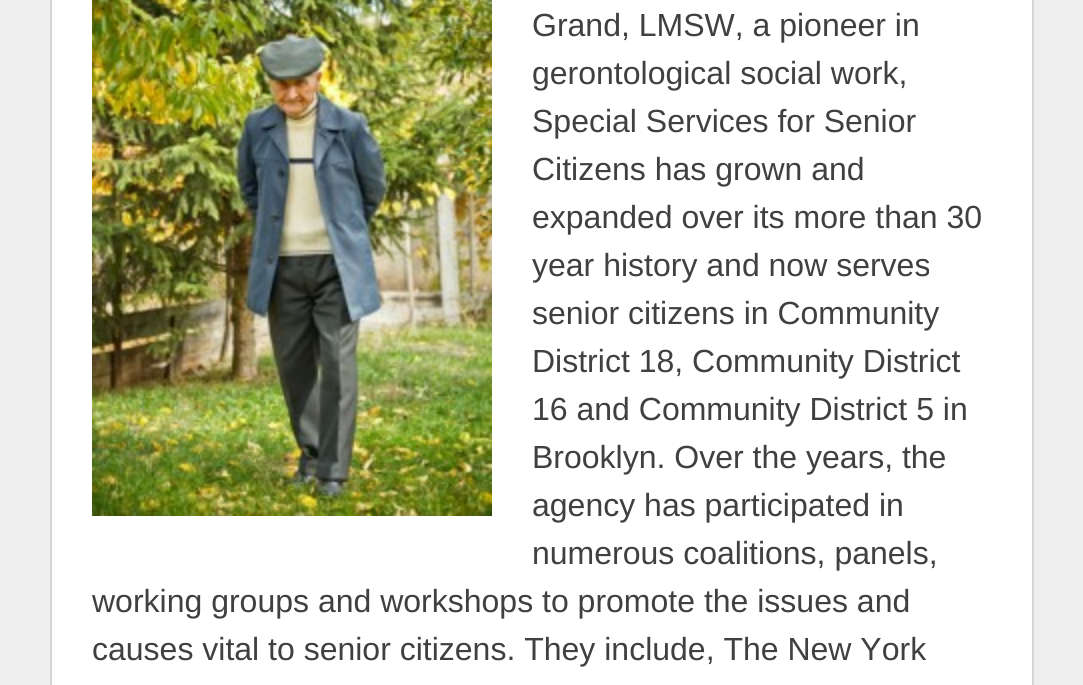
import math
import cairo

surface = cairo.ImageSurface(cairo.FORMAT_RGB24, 1083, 685)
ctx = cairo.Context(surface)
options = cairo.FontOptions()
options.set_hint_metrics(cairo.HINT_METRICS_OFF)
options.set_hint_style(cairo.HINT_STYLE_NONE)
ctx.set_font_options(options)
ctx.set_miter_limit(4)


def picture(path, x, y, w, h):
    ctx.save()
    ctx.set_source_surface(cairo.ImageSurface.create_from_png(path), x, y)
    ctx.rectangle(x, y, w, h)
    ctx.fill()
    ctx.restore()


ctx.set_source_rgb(0.937, 0.937, 0.937)
ctx.paint()
ctx.set_source_rgb(1, 1, 1)
ctx.rectangle(51, -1, 982, 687)
ctx.fill_preserve()
ctx.set_source_rgb(0.839, 0.839, 0.839)
ctx.stroke()
picture("img1.png", 92, 0, 400, 516)
ctx.select_font_face("Liberation Sans")
ctx.set_font_size(32)
ctx.set_source_rgb(0.251, 0.251, 0.251)
ctx.move_to(532, 36)
ctx.show_text("Grand, LMSW, a pioneer in")
ctx.move_to(532, 84)
ctx.show_text("gerontological social work,")
ctx.move_to(532, 132)
ctx.show_text("Special Services for Senior")
ctx.move_to(532, 180)
ctx.show_text("Citizens has grown and")
ctx.move_to(532, 228)
ctx.show_text("expanded over its more than 30")
ctx.move_to(532, 276)
ctx.show_text("year history and now serves")
ctx.move_to(532, 324)
ctx.show_text("senior citizens in Community")
ctx.move_to(532, 372)
ctx.show_text("District 18, Community District")
ctx.move_to(532, 420)
ctx.show_text("16 and Community District 5 in")
ctx.move_to(532, 468)
ctx.show_text("Brooklyn. Over the years, the")
ctx.move_to(532, 516)
ctx.show_text("agency has participated in")
ctx.move_to(532, 564)
ctx.show_text("numerous coalitions, panels,")
ctx.move_to(92, 612)
ctx.show_text("working groups and workshops to promote the issues and")
ctx.move_to(92, 660)
ctx.show_text("causes vital to senior citizens. They include, The New York")
surface.write_to_png("page.png")
